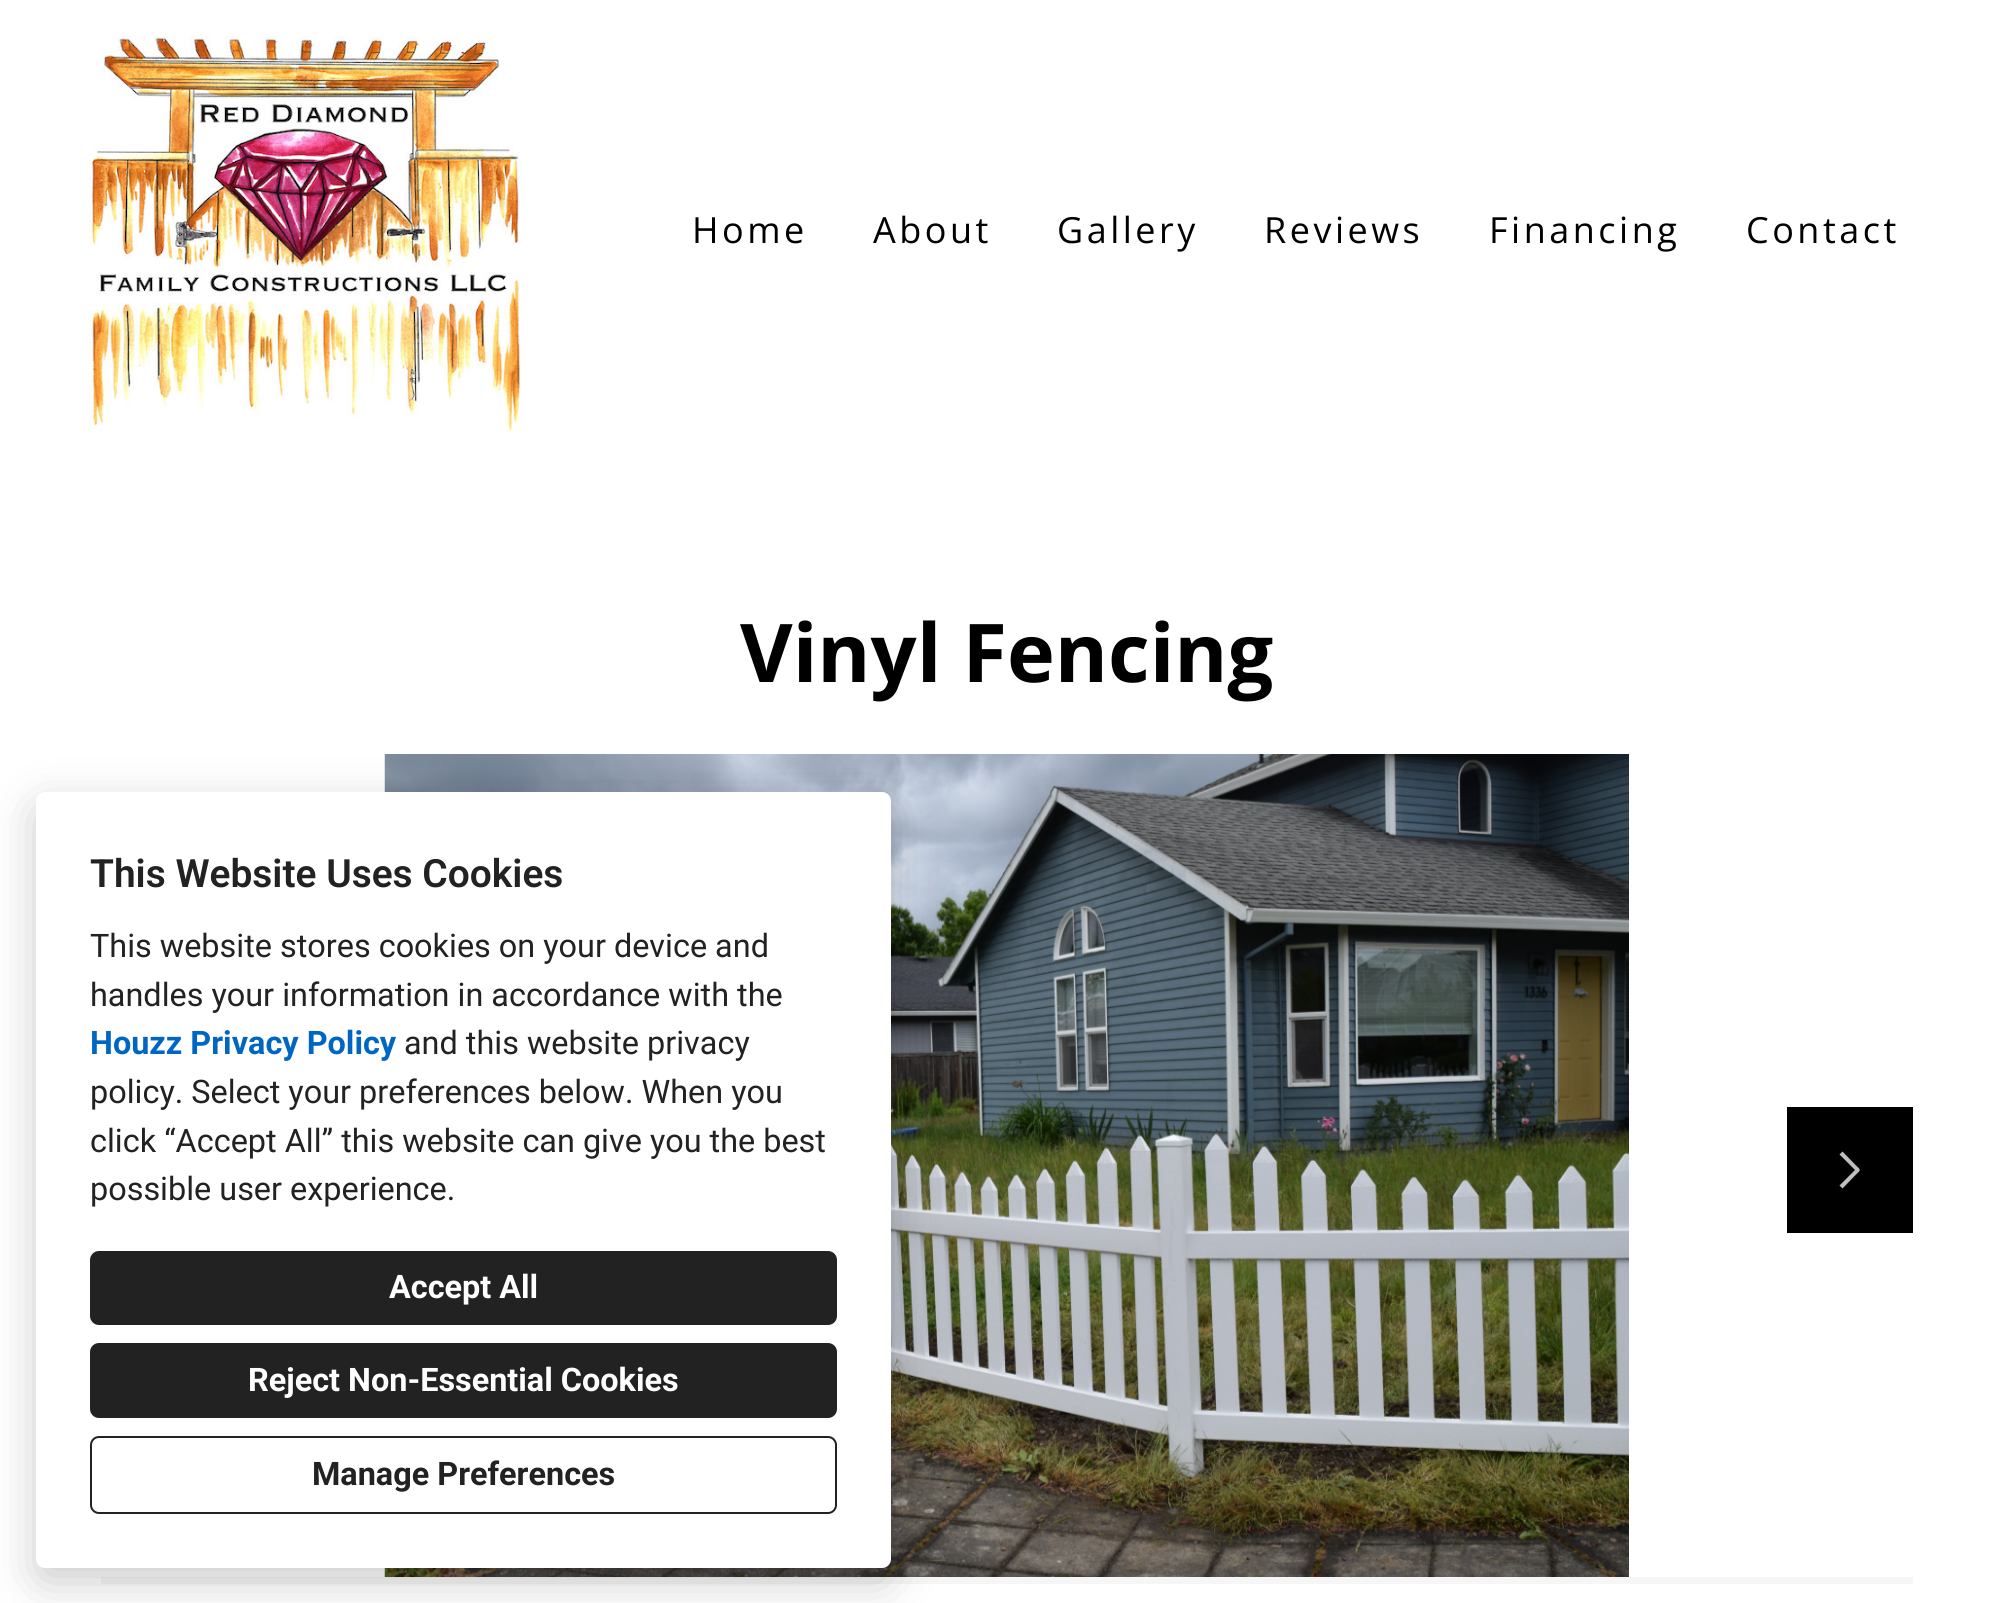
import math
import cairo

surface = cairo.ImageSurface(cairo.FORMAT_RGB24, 2012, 1603)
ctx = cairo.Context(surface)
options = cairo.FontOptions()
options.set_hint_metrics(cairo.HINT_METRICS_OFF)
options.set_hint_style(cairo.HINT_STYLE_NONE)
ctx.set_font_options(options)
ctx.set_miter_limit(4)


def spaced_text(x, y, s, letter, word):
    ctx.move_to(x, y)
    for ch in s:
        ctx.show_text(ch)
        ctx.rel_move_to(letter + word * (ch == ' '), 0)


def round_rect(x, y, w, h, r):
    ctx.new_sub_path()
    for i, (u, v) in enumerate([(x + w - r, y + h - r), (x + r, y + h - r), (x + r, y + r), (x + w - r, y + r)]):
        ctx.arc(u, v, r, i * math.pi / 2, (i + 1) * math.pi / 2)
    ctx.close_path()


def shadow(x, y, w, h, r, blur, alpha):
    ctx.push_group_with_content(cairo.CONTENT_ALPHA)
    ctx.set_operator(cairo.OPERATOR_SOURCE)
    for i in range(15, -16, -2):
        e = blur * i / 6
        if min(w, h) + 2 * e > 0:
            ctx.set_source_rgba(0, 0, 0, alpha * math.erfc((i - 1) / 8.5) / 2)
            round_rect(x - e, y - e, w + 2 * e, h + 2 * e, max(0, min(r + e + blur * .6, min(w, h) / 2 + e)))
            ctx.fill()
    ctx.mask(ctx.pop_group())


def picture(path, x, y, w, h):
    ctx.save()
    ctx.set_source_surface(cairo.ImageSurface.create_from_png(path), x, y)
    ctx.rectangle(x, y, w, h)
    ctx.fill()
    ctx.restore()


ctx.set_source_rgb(1, 1, 1)
ctx.paint()
picture("img1.png", 88, 36, 433, 396)
ctx.select_font_face("Open Sans")
ctx.set_font_size(36)
ctx.set_source_rgb(0, 0, 0)
spaced_text(692, 243, "Home", 3.5, 0)
spaced_text(873, 243, "About", 3.5, 0)
spaced_text(1057, 243, "Gallery", 3.5, 0)
spaced_text(1264, 243, "Reviews", 3.5, 0)
spaced_text(1489, 243, "Financing", 3.5, 0)
spaced_text(1746, 243, "Contact", 3.5, 0)
ctx.select_font_face("Open Sans", cairo.FONT_SLANT_NORMAL, cairo.FONT_WEIGHT_BOLD)
ctx.set_font_size(81)
ctx.move_to(740, 682)
ctx.show_text("Vinyl Fencing")
picture("img2.png", 384, 754, 1245, 823)
ctx.rectangle(1787, 1107, 126, 126)
ctx.fill()
ctx.set_source_rgb(0.749, 0.749, 0.749)
ctx.new_path()
ctx.move_to(1842.5, 1188.5)
ctx.line_to(1856, 1174.5)
ctx.curve_to(1861, 1170, 1861, 1170, 1856, 1165.5)
ctx.line_to(1842.5, 1151.5)
ctx.line_to(1839.5, 1154.5)
ctx.line_to(1855, 1170)
ctx.line_to(1839.5, 1185.5)
ctx.close_path()
ctx.fill()
ctx.set_source_rgb(0.961, 0.961, 0.961)
ctx.rectangle(101, 1577, 1812, 7)
ctx.fill()
ctx.set_source_rgb(0, 0, 0)
shadow(36, 806, 855, 776, 9, 22.5, 0.2)
ctx.set_source_rgb(1, 1, 1)
round_rect(36, 792, 855, 776, 9)
ctx.fill()
ctx.select_font_face("Roboto SemiBold")
ctx.set_font_size(38.9)
ctx.set_source_rgb(0.133, 0.133, 0.133)
ctx.move_to(90, 887)
ctx.show_text("This Website Uses Cookies")
ctx.select_font_face("Roboto")
ctx.set_font_size(32.4)
ctx.move_to(90, 957)
ctx.show_text("This website stores cookies on your device and")
ctx.move_to(90, 1006)
ctx.show_text("handles your information in accordance with the")
ctx.select_font_face("Roboto", cairo.FONT_SLANT_NORMAL, cairo.FONT_WEIGHT_BOLD)
ctx.set_source_rgb(0, 0.4, 0.765)
ctx.move_to(90, 1054)
ctx.show_text("Houzz Privacy Policy")
ctx.select_font_face("Roboto")
ctx.set_source_rgb(0.133, 0.133, 0.133)
ctx.move_to(404, 1054)
ctx.show_text("and this website privacy")
ctx.move_to(90, 1103)
ctx.show_text("policy. Select your preferences below. When you")
ctx.move_to(90, 1152)
ctx.show_text("click “Accept All” this website can give you the best")
ctx.move_to(90, 1200)
ctx.show_text("possible user experience.")
round_rect(90, 1251, 747, 74, 9)
ctx.fill()
ctx.select_font_face("Roboto", cairo.FONT_SLANT_NORMAL, cairo.FONT_WEIGHT_BOLD)
ctx.set_source_rgb(1, 1, 1)
ctx.move_to(389, 1298)
ctx.show_text("Accept All")
ctx.set_source_rgb(0.133, 0.133, 0.133)
round_rect(90, 1343, 747, 75, 9)
ctx.fill()
ctx.set_source_rgb(1, 1, 1)
ctx.move_to(248, 1391)
ctx.show_text("Reject Non-Essential Cookies")
round_rect(91, 1437, 745, 76, 8)
ctx.set_source_rgb(0.133, 0.133, 0.133)
ctx.stroke()
ctx.move_to(312, 1485)
ctx.show_text("Manage Preferences")
surface.write_to_png("page.png")
